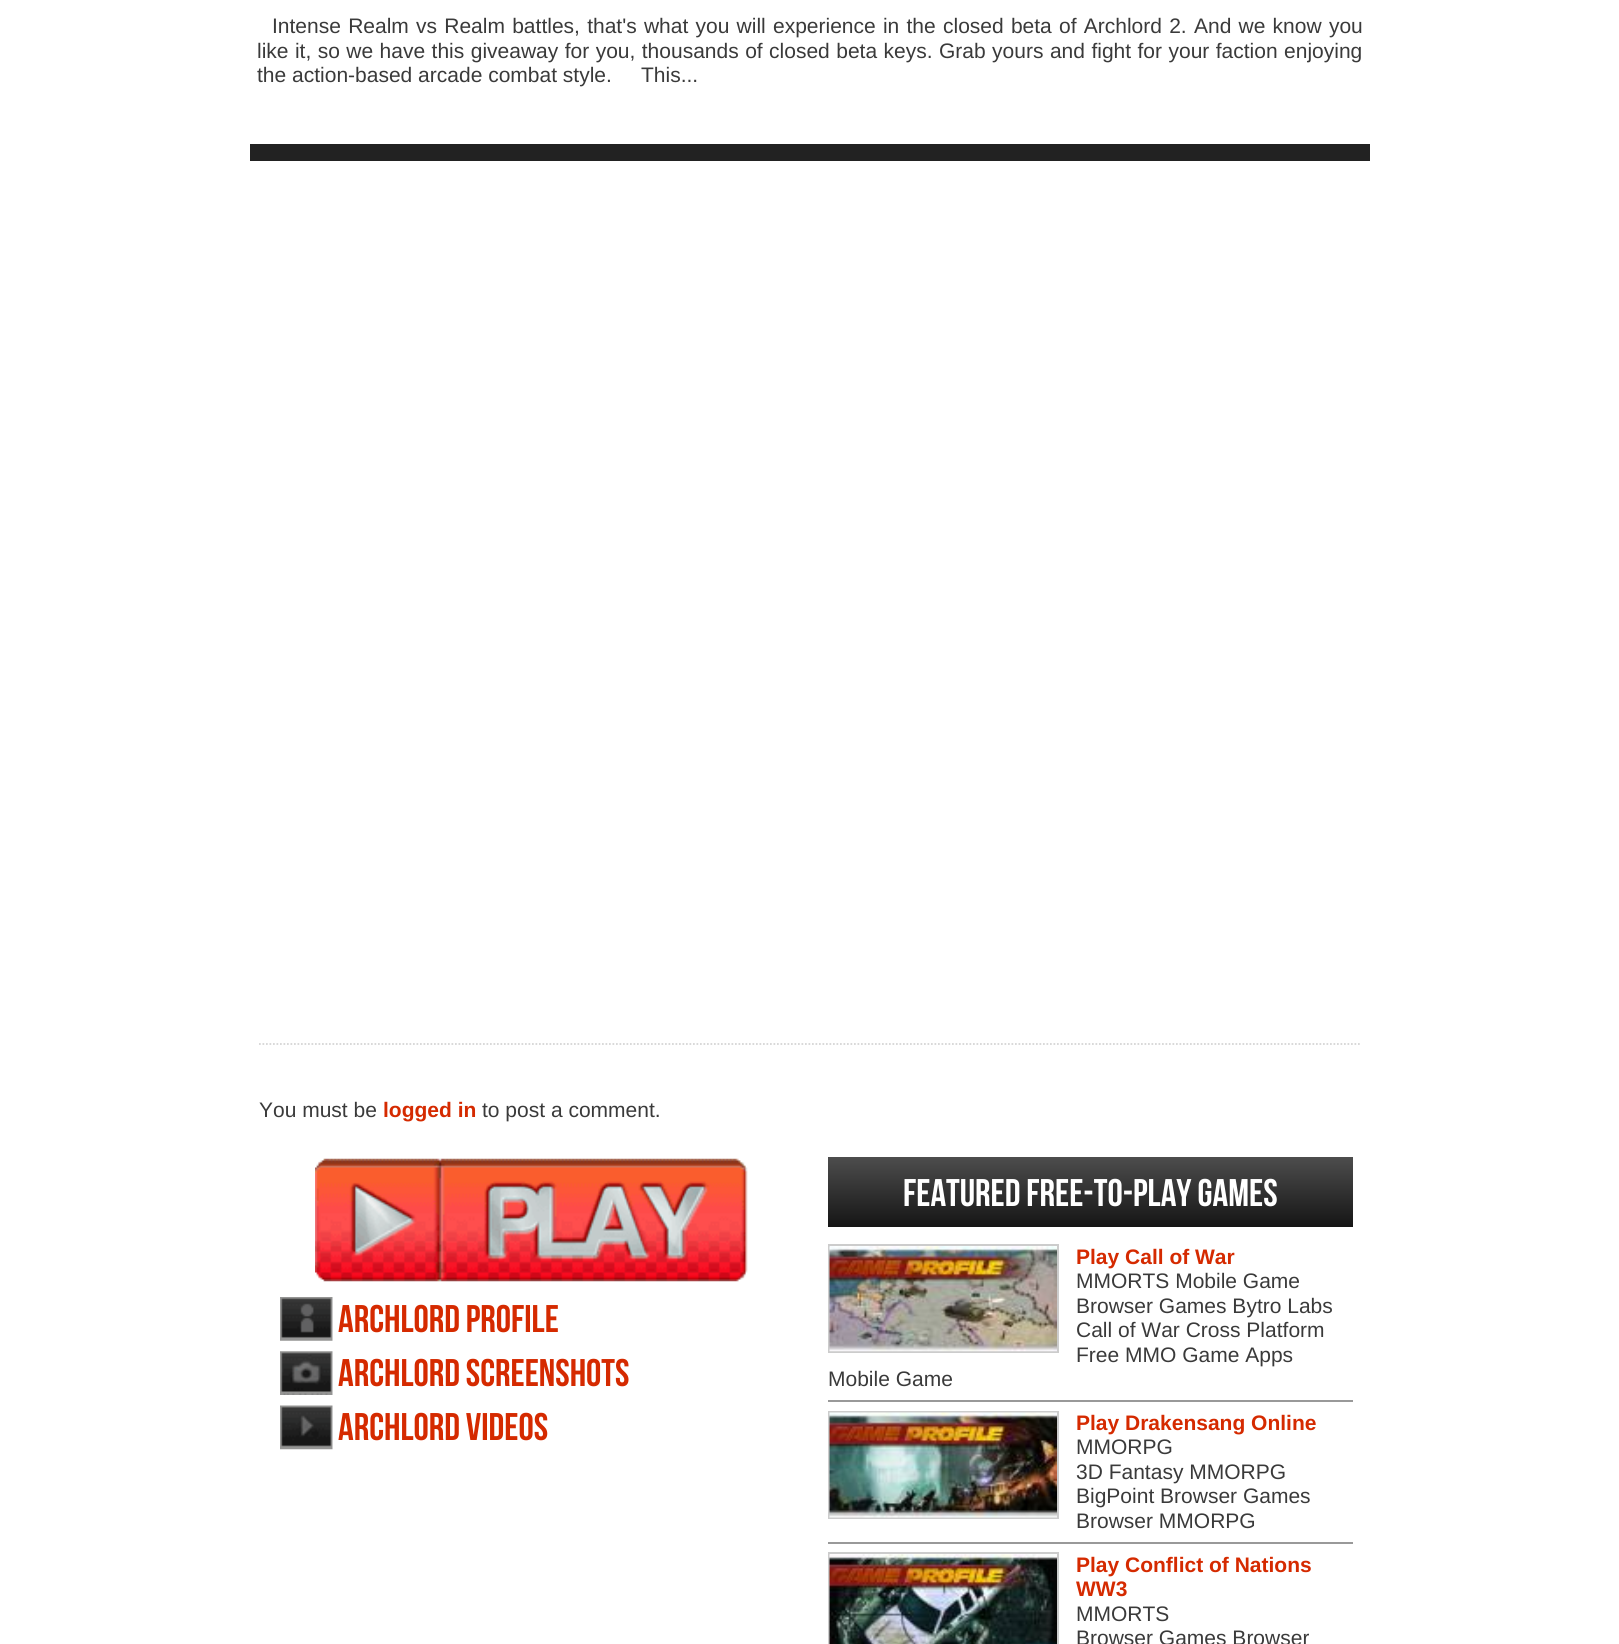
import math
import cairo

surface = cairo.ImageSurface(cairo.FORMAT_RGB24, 1619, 1644)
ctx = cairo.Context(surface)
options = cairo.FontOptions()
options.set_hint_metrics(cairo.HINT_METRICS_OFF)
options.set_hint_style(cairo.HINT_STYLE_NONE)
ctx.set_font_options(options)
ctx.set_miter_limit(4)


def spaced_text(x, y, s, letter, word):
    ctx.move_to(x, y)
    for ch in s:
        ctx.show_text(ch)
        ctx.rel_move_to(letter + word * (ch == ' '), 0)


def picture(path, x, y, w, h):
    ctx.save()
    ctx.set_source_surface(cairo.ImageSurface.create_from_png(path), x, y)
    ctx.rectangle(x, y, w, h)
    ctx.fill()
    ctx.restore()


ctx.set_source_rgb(1, 1, 1)
ctx.paint()
ctx.select_font_face("Liberation Sans")
ctx.set_font_size(21)
ctx.set_source_rgb(0.227, 0.227, 0.227)
spaced_text(272, 33, "Intense Realm vs Realm battles, that's what you will experience in the closed beta of Archlord 2. And we know you", 0, 1.4)
spaced_text(257, 58, "like it, so we have this giveaway for you, thousands of closed beta keys. Grab yours and fight for your faction enjoying", 0, 0.6)
ctx.move_to(257, 82)
ctx.show_text("the action-based arcade combat style.")
ctx.move_to(641, 82)
ctx.show_text("This...")
ctx.set_source_rgb(0.133, 0.133, 0.133)
ctx.rectangle(250, 144, 1120, 17)
ctx.fill()
ctx.new_path()
ctx.move_to(259, 1044)
ctx.line_to(1361.5, 1044)
ctx.set_source_rgb(0.835, 0.835, 0.835)
ctx.set_line_width(1.8)
ctx.set_dash([1.75, 1.75])
ctx.stroke()
ctx.set_source_rgb(0.227, 0.227, 0.227)
ctx.move_to(259, 1117)
ctx.show_text("You must be")
ctx.select_font_face("Liberation Sans", cairo.FONT_SLANT_NORMAL, cairo.FONT_WEIGHT_BOLD)
ctx.set_source_rgb(0.835, 0.165, 0)
ctx.move_to(383, 1117)
ctx.show_text("logged in")
ctx.select_font_face("Liberation Sans")
ctx.set_source_rgb(0.227, 0.227, 0.227)
ctx.move_to(482, 1117)
ctx.show_text("to post a comment.")
picture("img1.png", 315, 1158, 433, 124)
picture("img2.png", 280, 1297, 53, 44)
ctx.select_font_face("Bebas Neue")
ctx.set_font_size(38.5)
ctx.set_source_rgb(0.835, 0.165, 0)
ctx.move_to(338, 1332)
ctx.show_text("Archlord profile")
picture("img3.png", 280, 1351, 53, 44)
ctx.move_to(338, 1386)
ctx.show_text("Archlord screenshots")
picture("img4.png", 280, 1405, 53, 45)
ctx.move_to(338, 1440)
ctx.show_text("Archlord videos")
gradient = cairo.LinearGradient(1090, 1157, 1090, 1227)
gradient.add_color_stop_rgba(0, 0.302, 0.302, 0.302, 1)
gradient.add_color_stop_rgba(1, 0.082, 0.082, 0.082, 1)
ctx.set_source(gradient)
ctx.rectangle(828, 1157, 525, 70)
ctx.fill()
ctx.set_source_rgb(1, 1, 1)
ctx.move_to(903, 1206)
ctx.show_text("Featured Free-to-play Games")
ctx.set_source_rgb(0.6, 0.6, 0.6)
ctx.rectangle(828, 1400, 525, 2)
ctx.fill()
ctx.rectangle(829, 1245, 229, 107)
ctx.set_source_rgb(0.8, 0.8, 0.8)
ctx.set_line_width(2)
ctx.set_dash([])
ctx.stroke()
picture("img5.png", 829, 1246, 228, 106)
ctx.select_font_face("Liberation Sans", cairo.FONT_SLANT_NORMAL, cairo.FONT_WEIGHT_BOLD)
ctx.set_font_size(21)
ctx.set_source_rgb(0.835, 0.165, 0)
ctx.move_to(1076, 1264)
ctx.show_text("Play Call of War")
ctx.select_font_face("Liberation Sans")
ctx.set_source_rgb(0.227, 0.227, 0.227)
ctx.move_to(1076, 1288)
ctx.show_text("MMORTS Mobile Game")
ctx.move_to(1076, 1313)
ctx.show_text("Browser Games Bytro Labs")
ctx.move_to(1076, 1337)
ctx.show_text("Call of War Cross Platform")
ctx.move_to(1076, 1362)
ctx.show_text("Free MMO Game Apps")
ctx.move_to(828, 1386)
ctx.show_text("Mobile Game")
ctx.set_source_rgb(0.6, 0.6, 0.6)
ctx.rectangle(828, 1542, 525, 2)
ctx.fill()
ctx.rectangle(829, 1412, 229, 106)
ctx.set_source_rgb(0.8, 0.8, 0.8)
ctx.stroke()
picture("img6.png", 829, 1412, 228, 106)
ctx.select_font_face("Liberation Sans", cairo.FONT_SLANT_NORMAL, cairo.FONT_WEIGHT_BOLD)
ctx.set_source_rgb(0.835, 0.165, 0)
ctx.move_to(1076, 1430)
ctx.show_text("Play Drakensang Online")
ctx.select_font_face("Liberation Sans")
ctx.set_source_rgb(0.227, 0.227, 0.227)
ctx.move_to(1076, 1454)
ctx.show_text("MMORPG")
ctx.move_to(1076, 1479)
ctx.show_text("3D Fantasy MMORPG")
ctx.move_to(1076, 1503)
ctx.show_text("BigPoint Browser Games")
ctx.move_to(1076, 1528)
ctx.show_text("Browser MMORPG")
ctx.rectangle(829, 1553, 229, 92)
ctx.set_source_rgb(0.8, 0.8, 0.8)
ctx.stroke()
picture("img7.png", 829, 1554, 228, 90)
ctx.select_font_face("Liberation Sans", cairo.FONT_SLANT_NORMAL, cairo.FONT_WEIGHT_BOLD)
ctx.set_source_rgb(0.835, 0.165, 0)
ctx.move_to(1076, 1572)
ctx.show_text("Play Conflict of Nations")
ctx.move_to(1076, 1596)
ctx.show_text("WW3")
ctx.select_font_face("Liberation Sans")
ctx.set_source_rgb(0.227, 0.227, 0.227)
ctx.move_to(1076, 1621)
ctx.show_text("MMORTS")
ctx.move_to(1076, 1645)
ctx.show_text("Browser Games Browser")
surface.write_to_png("page.png")
